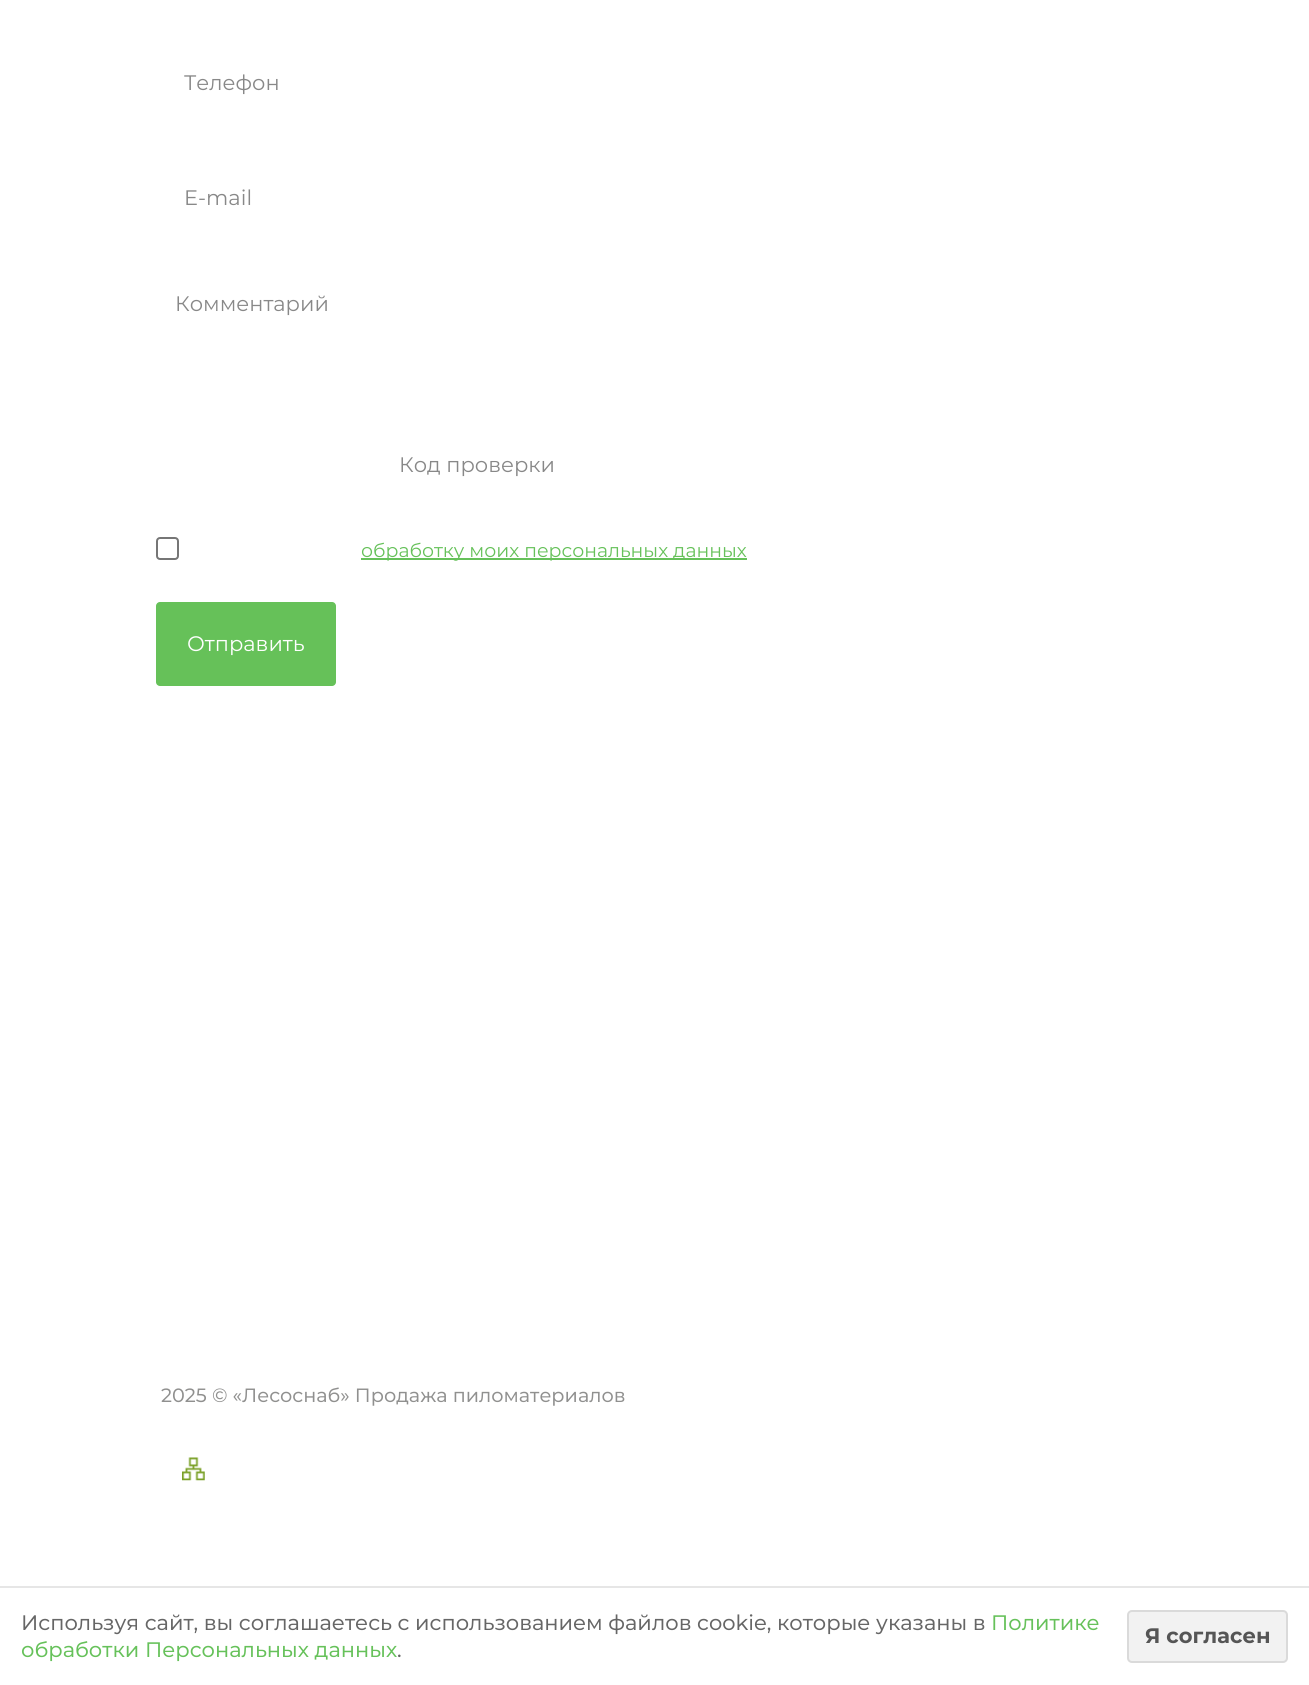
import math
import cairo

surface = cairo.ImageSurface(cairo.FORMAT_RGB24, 1309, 1685)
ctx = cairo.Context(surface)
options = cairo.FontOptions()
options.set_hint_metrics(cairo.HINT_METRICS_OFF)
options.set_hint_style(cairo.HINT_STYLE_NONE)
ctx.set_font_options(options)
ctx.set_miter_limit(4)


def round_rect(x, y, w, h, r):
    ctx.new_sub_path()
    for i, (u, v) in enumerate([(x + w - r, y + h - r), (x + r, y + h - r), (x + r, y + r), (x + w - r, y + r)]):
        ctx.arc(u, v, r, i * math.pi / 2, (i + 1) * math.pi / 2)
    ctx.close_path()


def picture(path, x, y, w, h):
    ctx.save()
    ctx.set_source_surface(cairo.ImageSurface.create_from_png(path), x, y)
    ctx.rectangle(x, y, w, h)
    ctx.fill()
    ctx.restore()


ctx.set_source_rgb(1, 1, 1)
ctx.paint()
ctx.select_font_face("Montserrat")
ctx.set_font_size(21)
ctx.set_source_rgb(0.533, 0.533, 0.533)
ctx.move_to(184, 90)
ctx.show_text("Телефон")
ctx.move_to(184, 205)
ctx.show_text("E-mail")
ctx.move_to(175, 311)
ctx.show_text("Комментарий")
ctx.move_to(399, 472)
ctx.show_text("Код проверки")
round_rect(157, 538, 21, 21, 3)
ctx.set_source_rgb(0.463, 0.463, 0.463)
ctx.stroke()
ctx.set_source_rgb(0.4, 0.757, 0.353)
ctx.rectangle(361, 558, 386, 2)
ctx.fill()
ctx.set_font_size(18.9)
ctx.move_to(361, 557)
ctx.show_text("обработку моих персональных данных")
ctx.set_source_rgb(0.4, 0.757, 0.349)
round_rect(156, 602, 180, 84, 4)
ctx.fill()
ctx.set_font_size(21)
ctx.set_source_rgb(1, 1, 1)
ctx.move_to(187, 651)
ctx.show_text("Отправить")
ctx.select_font_face("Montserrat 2")
ctx.set_font_size(19.25)
ctx.set_source_rgb(0.565, 0.565, 0.561)
ctx.move_to(161, 1402)
ctx.show_text("2025 © «Лесоснаб» Продажа пиломатериалов")
picture("img1.png", 182, 1457, 23, 24)
ctx.set_source_rgb(0.902, 0.902, 0.902)
ctx.rectangle(0, 1586, 1309, 2)
ctx.fill()
ctx.set_font_size(21)
ctx.set_source_rgb(0.4, 0.4, 0.4)
ctx.move_to(21, 1630)
ctx.show_text("Используя сайт, вы соглашаетесь с использованием файлов cookie, которые указаны в")
ctx.set_source_rgb(0.4, 0.757, 0.353)
ctx.move_to(991, 1630)
ctx.show_text("Политике")
ctx.move_to(21, 1657)
ctx.show_text("обработки Персональных данных")
ctx.set_source_rgb(0.4, 0.4, 0.4)
ctx.move_to(397, 1657)
ctx.show_text(".")
ctx.set_source_rgb(0.949, 0.949, 0.949)
round_rect(1127, 1610, 161, 53, 5)
ctx.fill()
round_rect(1128, 1611, 159, 51, 4)
ctx.set_source_rgba(0, 0, 0, 0.1)
ctx.stroke()
ctx.select_font_face("Montserrat", cairo.FONT_SLANT_NORMAL, cairo.FONT_WEIGHT_BOLD)
ctx.set_source_rgb(0.333, 0.333, 0.333)
ctx.move_to(1145, 1643)
ctx.show_text("Я согласен")
surface.write_to_png("page.png")
